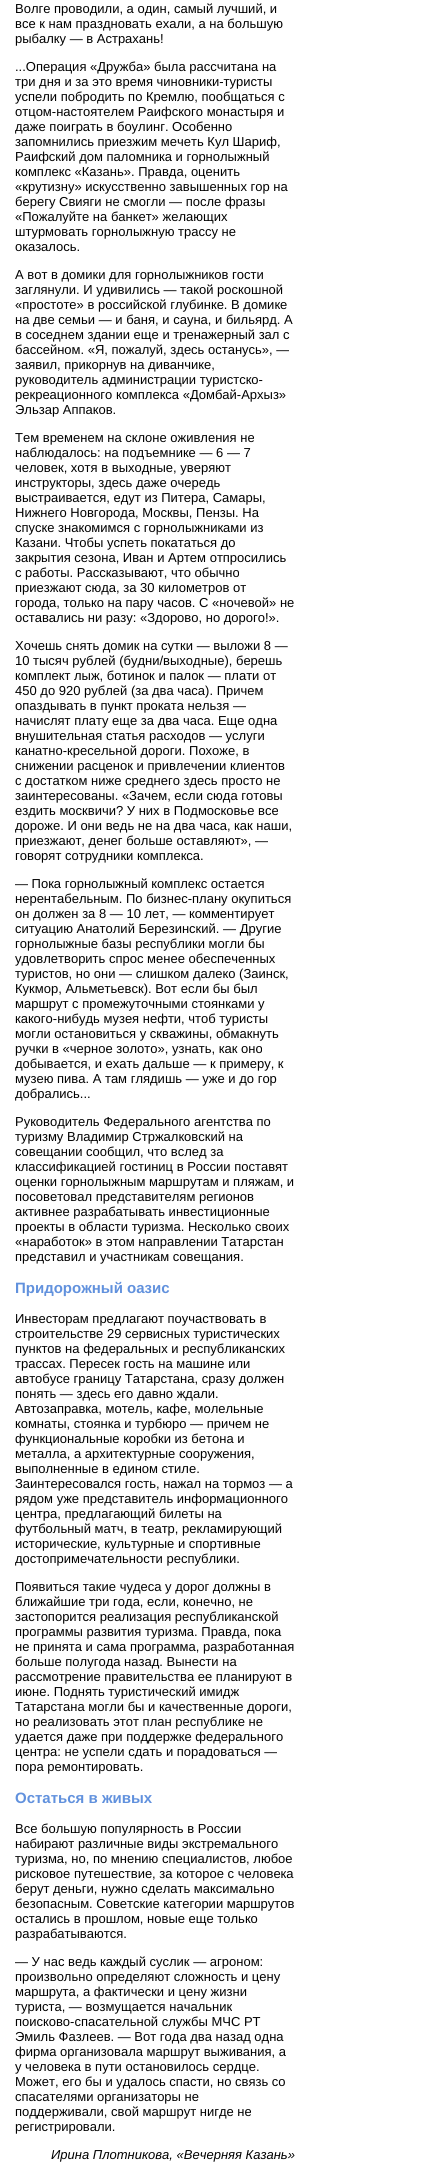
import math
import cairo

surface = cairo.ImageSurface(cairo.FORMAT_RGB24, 438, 2162)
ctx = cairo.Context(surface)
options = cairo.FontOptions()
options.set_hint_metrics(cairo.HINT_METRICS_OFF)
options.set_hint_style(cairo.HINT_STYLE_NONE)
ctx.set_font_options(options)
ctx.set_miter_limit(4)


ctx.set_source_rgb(1, 1, 1)
ctx.paint()
ctx.select_font_face("Liberation Sans")
ctx.set_font_size(13)
ctx.set_source_rgb(0, 0, 0)
ctx.move_to(15, 13)
ctx.show_text("Волге проводили, а один, самый лучший, и")
ctx.move_to(15, 28)
ctx.show_text("все к нам праздновать ехали, а на большую")
ctx.move_to(15, 43)
ctx.show_text("рыбалку — в Астрахань!")
ctx.move_to(15, 71)
ctx.show_text("...Операция «Дружба» была рассчитана на")
ctx.move_to(15, 86)
ctx.show_text("три дня и за это время чиновники-туристы")
ctx.move_to(15, 101)
ctx.show_text("успели побродить по Кремлю, пообщаться с")
ctx.move_to(15, 116)
ctx.show_text("отцом-настоятелем Раифского монастыря и")
ctx.move_to(15, 131)
ctx.show_text("даже поиграть в боулинг. Особенно")
ctx.move_to(15, 146)
ctx.show_text("запомнились приезжим мечеть Кул Шариф,")
ctx.move_to(15, 161)
ctx.show_text("Раифский дом паломника и горнолыжный")
ctx.move_to(15, 176)
ctx.show_text("комплекс «Казань». Правда, оценить")
ctx.move_to(15, 191)
ctx.show_text("«крутизну» искусственно завышенных гор на")
ctx.move_to(15, 206)
ctx.show_text("берегу Свияги не смогли — после фразы")
ctx.move_to(15, 221)
ctx.show_text("«Пожалуйте на банкет» желающих")
ctx.move_to(15, 236)
ctx.show_text("штурмовать горнолыжную трассу не")
ctx.move_to(15, 251)
ctx.show_text("оказалось.")
ctx.move_to(15, 279)
ctx.show_text("А вот в домики для горнолыжников гости")
ctx.move_to(15, 294)
ctx.show_text("заглянули. И удивились — такой роскошной")
ctx.move_to(15, 309)
ctx.show_text("«простоте» в российской глубинке. В домике")
ctx.move_to(15, 324)
ctx.show_text("на две семьи — и баня, и сауна, и бильярд. А")
ctx.move_to(15, 339)
ctx.show_text("в соседнем здании еще и тренажерный зал с")
ctx.move_to(15, 354)
ctx.show_text("бассейном. «Я, пожалуй, здесь останусь», —")
ctx.move_to(15, 369)
ctx.show_text("заявил, прикорнув на диванчике,")
ctx.move_to(15, 384)
ctx.show_text("руководитель администрации туристско-")
ctx.move_to(15, 399)
ctx.show_text("рекреационного комплекса «Домбай-Архыз»")
ctx.move_to(15, 414)
ctx.show_text("Эльзар Аппаков.")
ctx.move_to(15, 442)
ctx.show_text("Тем временем на склоне оживления не")
ctx.move_to(15, 457)
ctx.show_text("наблюдалось: на подъемнике — 6 — 7")
ctx.move_to(15, 472)
ctx.show_text("человек, хотя в выходные, уверяют")
ctx.move_to(15, 487)
ctx.show_text("инструкторы, здесь даже очередь")
ctx.move_to(15, 502)
ctx.show_text("выстраивается, едут из Питера, Самары,")
ctx.move_to(15, 517)
ctx.show_text("Нижнего Новгорода, Москвы, Пензы. На")
ctx.move_to(15, 532)
ctx.show_text("спуске знакомимся с горнолыжниками из")
ctx.move_to(15, 547)
ctx.show_text("Казани. Чтобы успеть покататься до")
ctx.move_to(15, 562)
ctx.show_text("закрытия сезона, Иван и Артем отпросились")
ctx.move_to(15, 577)
ctx.show_text("с работы. Рассказывают, что обычно")
ctx.move_to(15, 592)
ctx.show_text("приезжают сюда, за 30 километров от")
ctx.move_to(15, 607)
ctx.show_text("города, только на пару часов. С «ночевой» не")
ctx.move_to(15, 622)
ctx.show_text("оставались ни разу: «Здорово, но дорого!».")
ctx.move_to(15, 650)
ctx.show_text("Хочешь снять домик на сутки — выложи 8 —")
ctx.move_to(15, 665)
ctx.show_text("10 тысяч рублей (будни/выходные), берешь")
ctx.move_to(15, 680)
ctx.show_text("комплект лыж, ботинок и палок — плати от")
ctx.move_to(15, 695)
ctx.show_text("450 до 920 рублей (за два часа). Причем")
ctx.move_to(15, 710)
ctx.show_text("опаздывать в пункт проката нельзя —")
ctx.move_to(15, 725)
ctx.show_text("начислят плату еще за два часа. Еще одна")
ctx.move_to(15, 740)
ctx.show_text("внушительная статья расходов — услуги")
ctx.move_to(15, 755)
ctx.show_text("канатно-кресельной дороги. Похоже, в")
ctx.move_to(15, 770)
ctx.show_text("снижении расценок и привлечении клиентов")
ctx.move_to(15, 785)
ctx.show_text("с достатком ниже среднего здесь просто не")
ctx.move_to(15, 800)
ctx.show_text("заинтересованы. «Зачем, если сюда готовы")
ctx.move_to(15, 815)
ctx.show_text("ездить москвичи? У них в Подмосковье все")
ctx.move_to(15, 830)
ctx.show_text("дороже. И они ведь не на два часа, как наши,")
ctx.move_to(15, 845)
ctx.show_text("приезжают, денег больше оставляют», —")
ctx.move_to(15, 860)
ctx.show_text("говорят сотрудники комплекса.")
ctx.move_to(15, 888)
ctx.show_text("— Пока горнолыжный комплекс остается")
ctx.move_to(15, 903)
ctx.show_text("нерентабельным. По бизнес-плану окупиться")
ctx.move_to(15, 918)
ctx.show_text("он должен за 8 — 10 лет, — комментирует")
ctx.move_to(15, 933)
ctx.show_text("ситуацию Анатолий Березинский. — Другие")
ctx.move_to(15, 948)
ctx.show_text("горнолыжные базы республики могли бы")
ctx.move_to(15, 963)
ctx.show_text("удовлетворить спрос менее обеспеченных")
ctx.move_to(15, 978)
ctx.show_text("туристов, но они — слишком далеко (Заинск,")
ctx.move_to(15, 993)
ctx.show_text("Кукмор, Альметьевск). Вот если бы был")
ctx.move_to(15, 1008)
ctx.show_text("маршрут с промежуточными стоянками у")
ctx.move_to(15, 1023)
ctx.show_text("какого-нибудь музея нефти, чтоб туристы")
ctx.move_to(15, 1038)
ctx.show_text("могли остановиться у скважины, обмакнуть")
ctx.move_to(15, 1053)
ctx.show_text("ручки в «черное золото», узнать, как оно")
ctx.move_to(15, 1068)
ctx.show_text("добывается, и ехать дальше — к примеру, к")
ctx.move_to(15, 1083)
ctx.show_text("музею пива. А там глядишь — уже и до гор")
ctx.move_to(15, 1098)
ctx.show_text("добрались...")
ctx.move_to(15, 1126)
ctx.show_text("Руководитель Федерального агентства по")
ctx.move_to(15, 1141)
ctx.show_text("туризму Владимир Стржалковский на")
ctx.move_to(15, 1156)
ctx.show_text("совещании сообщил, что вслед за")
ctx.move_to(15, 1171)
ctx.show_text("классификацией гостиниц в России поставят")
ctx.move_to(15, 1186)
ctx.show_text("оценки горнолыжным маршрутам и пляжам, и")
ctx.move_to(15, 1201)
ctx.show_text("посоветовал представителям регионов")
ctx.move_to(15, 1216)
ctx.show_text("активнее разрабатывать инвестиционные")
ctx.move_to(15, 1231)
ctx.show_text("проекты в области туризма. Несколько своих")
ctx.move_to(15, 1246)
ctx.show_text("«наработок» в этом направлении Татарстан")
ctx.move_to(15, 1261)
ctx.show_text("представил и участникам совещания.")
ctx.select_font_face("Liberation Sans", cairo.FONT_SLANT_NORMAL, cairo.FONT_WEIGHT_BOLD)
ctx.set_font_size(15)
ctx.set_source_rgb(0.38, 0.569, 0.867)
ctx.move_to(15, 1293)
ctx.show_text("Придорожный оазис")
ctx.select_font_face("Liberation Sans")
ctx.set_font_size(13)
ctx.set_source_rgb(0, 0, 0)
ctx.move_to(15, 1323)
ctx.show_text("Инвесторам предлагают поучаствовать в")
ctx.move_to(15, 1338)
ctx.show_text("строительстве 29 сервисных туристических")
ctx.move_to(15, 1353)
ctx.show_text("пунктов на федеральных и республиканских")
ctx.move_to(15, 1368)
ctx.show_text("трассах. Пересек гость на машине или")
ctx.move_to(15, 1383)
ctx.show_text("автобусе границу Татарстана, сразу должен")
ctx.move_to(15, 1398)
ctx.show_text("понять — здесь его давно ждали.")
ctx.move_to(15, 1413)
ctx.show_text("Автозаправка, мотель, кафе, молельные")
ctx.move_to(15, 1428)
ctx.show_text("комнаты, стоянка и турбюро — причем не")
ctx.move_to(15, 1443)
ctx.show_text("функциональные коробки из бетона и")
ctx.move_to(15, 1458)
ctx.show_text("металла, а архитектурные сооружения,")
ctx.move_to(15, 1473)
ctx.show_text("выполненные в едином стиле.")
ctx.move_to(15, 1488)
ctx.show_text("Заинтересовался гость, нажал на тормоз — а")
ctx.move_to(15, 1503)
ctx.show_text("рядом уже представитель информационного")
ctx.move_to(15, 1518)
ctx.show_text("центра, предлагающий билеты на")
ctx.move_to(15, 1533)
ctx.show_text("футбольный матч, в театр, рекламирующий")
ctx.move_to(15, 1548)
ctx.show_text("исторические, культурные и спортивные")
ctx.move_to(15, 1563)
ctx.show_text("достопримечательности республики.")
ctx.move_to(15, 1591)
ctx.show_text("Появиться такие чудеса у дорог должны в")
ctx.move_to(15, 1606)
ctx.show_text("ближайшие три года, если, конечно, не")
ctx.move_to(15, 1621)
ctx.show_text("застопорится реализация республиканской")
ctx.move_to(15, 1636)
ctx.show_text("программы развития туризма. Правда, пока")
ctx.move_to(15, 1651)
ctx.show_text("не принята и сама программа, разработанная")
ctx.move_to(15, 1666)
ctx.show_text("больше полугода назад. Вынести на")
ctx.move_to(15, 1681)
ctx.show_text("рассмотрение правительства ее планируют в")
ctx.move_to(15, 1696)
ctx.show_text("июне. Поднять туристический имидж")
ctx.move_to(15, 1711)
ctx.show_text("Татарстана могли бы и качественные дороги,")
ctx.move_to(15, 1726)
ctx.show_text("но реализовать этот план республике не")
ctx.move_to(15, 1741)
ctx.show_text("удается даже при поддержке федерального")
ctx.move_to(15, 1756)
ctx.show_text("центра: не успели сдать и порадоваться —")
ctx.move_to(15, 1771)
ctx.show_text("пора ремонтировать.")
ctx.select_font_face("Liberation Sans", cairo.FONT_SLANT_NORMAL, cairo.FONT_WEIGHT_BOLD)
ctx.set_font_size(15)
ctx.set_source_rgb(0.38, 0.569, 0.867)
ctx.move_to(15, 1803)
ctx.show_text("Остаться в живых")
ctx.select_font_face("Liberation Sans")
ctx.set_font_size(13)
ctx.set_source_rgb(0, 0, 0)
ctx.move_to(15, 1833)
ctx.show_text("Все большую популярность в России")
ctx.move_to(15, 1848)
ctx.show_text("набирают различные виды экстремального")
ctx.move_to(15, 1863)
ctx.show_text("туризма, но, по мнению специалистов, любое")
ctx.move_to(15, 1878)
ctx.show_text("рисковое путешествие, за которое с человека")
ctx.move_to(15, 1893)
ctx.show_text("берут деньги, нужно сделать максимально")
ctx.move_to(15, 1908)
ctx.show_text("безопасным. Советские категории маршрутов")
ctx.move_to(15, 1923)
ctx.show_text("остались в прошлом, новые еще только")
ctx.move_to(15, 1938)
ctx.show_text("разрабатываются.")
ctx.move_to(15, 1966)
ctx.show_text("— У нас ведь каждый суслик — агроном:")
ctx.move_to(15, 1981)
ctx.show_text("произвольно определяют сложность и цену")
ctx.move_to(15, 1996)
ctx.show_text("маршрута, а фактически и цену жизни")
ctx.move_to(15, 2011)
ctx.show_text("туриста, — возмущается начальник")
ctx.move_to(15, 2026)
ctx.show_text("поисково-спасательной службы МЧС РТ")
ctx.move_to(15, 2041)
ctx.show_text("Эмиль Фазлеев. — Вот года два назад одна")
ctx.move_to(15, 2056)
ctx.show_text("фирма организовала маршрут выживания, а")
ctx.move_to(15, 2071)
ctx.show_text("у человека в пути остановилось сердце.")
ctx.move_to(15, 2086)
ctx.show_text("Может, его бы и удалось спасти, но связь со")
ctx.move_to(15, 2101)
ctx.show_text("спасателями организаторы не")
ctx.move_to(15, 2116)
ctx.show_text("поддерживали, свой маршрут нигде не")
ctx.move_to(15, 2131)
ctx.show_text("регистрировали.")
ctx.select_font_face("Liberation Sans", cairo.FONT_SLANT_ITALIC)
ctx.move_to(51, 2159)
ctx.show_text("Ирина Плотникова, «Вечерняя Казань»")
surface.write_to_png("page.png")
